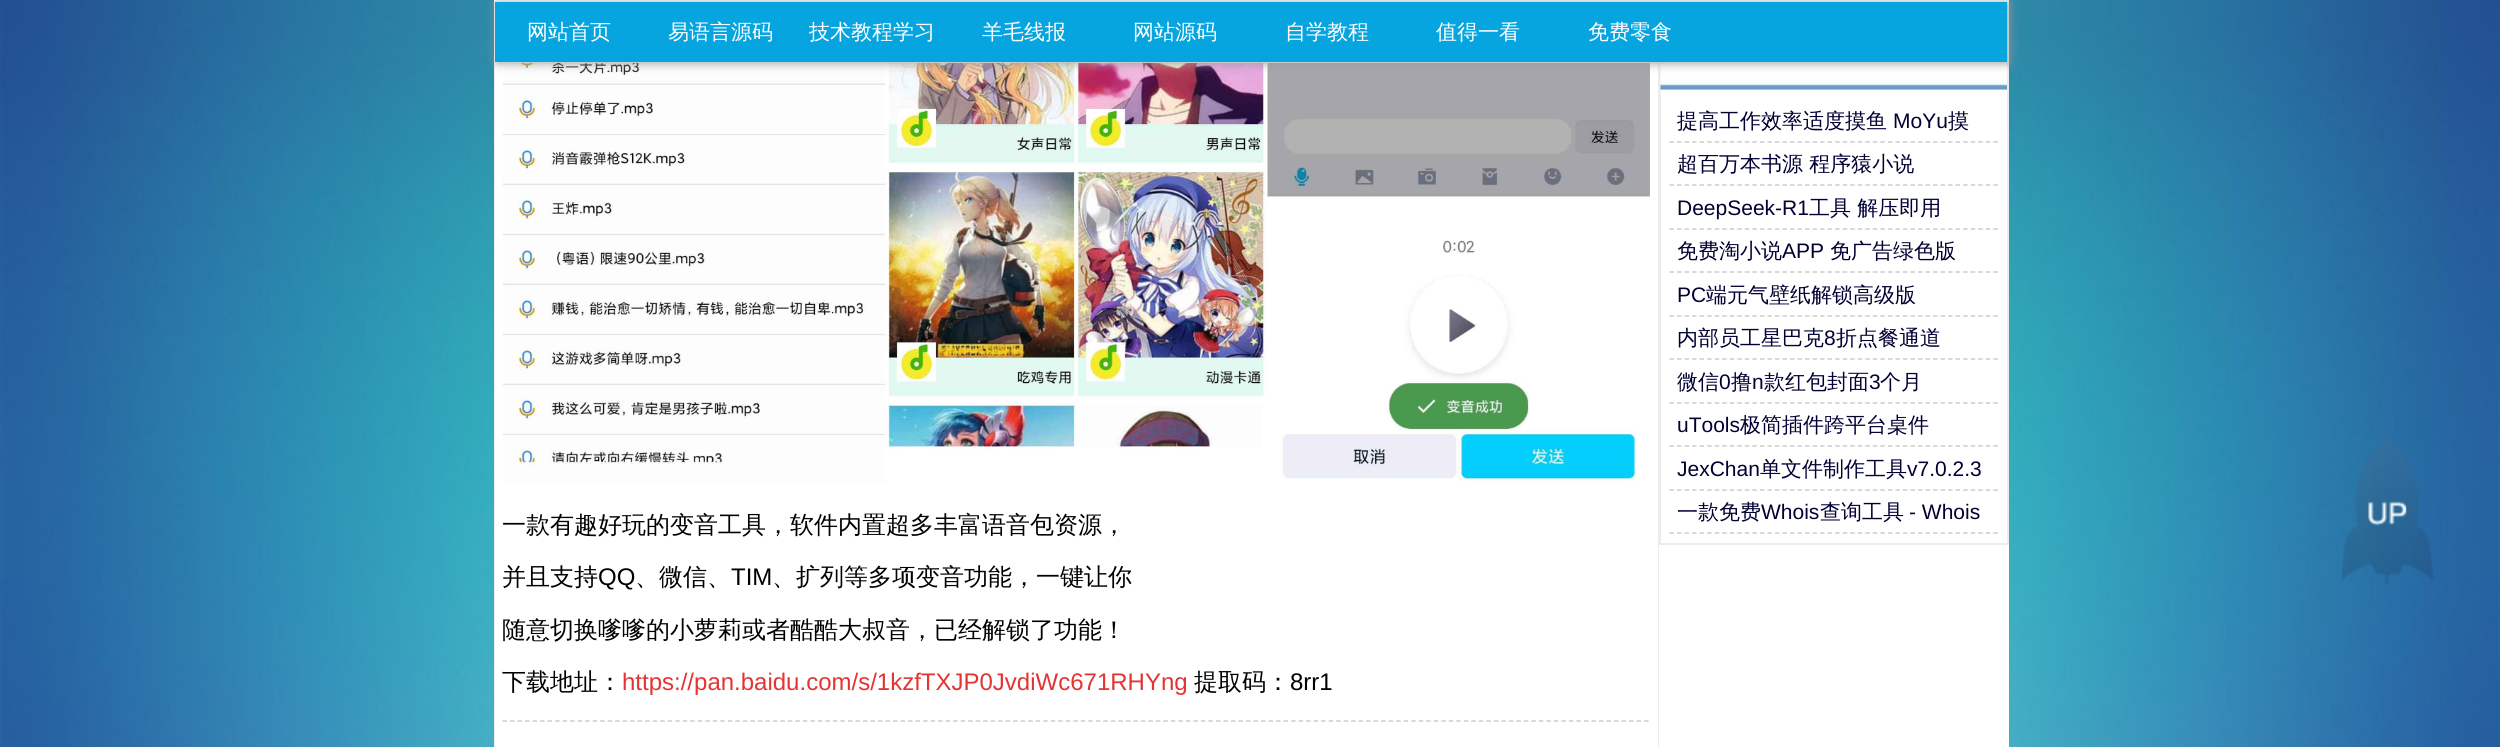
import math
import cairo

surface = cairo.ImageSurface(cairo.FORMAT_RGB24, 2500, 747)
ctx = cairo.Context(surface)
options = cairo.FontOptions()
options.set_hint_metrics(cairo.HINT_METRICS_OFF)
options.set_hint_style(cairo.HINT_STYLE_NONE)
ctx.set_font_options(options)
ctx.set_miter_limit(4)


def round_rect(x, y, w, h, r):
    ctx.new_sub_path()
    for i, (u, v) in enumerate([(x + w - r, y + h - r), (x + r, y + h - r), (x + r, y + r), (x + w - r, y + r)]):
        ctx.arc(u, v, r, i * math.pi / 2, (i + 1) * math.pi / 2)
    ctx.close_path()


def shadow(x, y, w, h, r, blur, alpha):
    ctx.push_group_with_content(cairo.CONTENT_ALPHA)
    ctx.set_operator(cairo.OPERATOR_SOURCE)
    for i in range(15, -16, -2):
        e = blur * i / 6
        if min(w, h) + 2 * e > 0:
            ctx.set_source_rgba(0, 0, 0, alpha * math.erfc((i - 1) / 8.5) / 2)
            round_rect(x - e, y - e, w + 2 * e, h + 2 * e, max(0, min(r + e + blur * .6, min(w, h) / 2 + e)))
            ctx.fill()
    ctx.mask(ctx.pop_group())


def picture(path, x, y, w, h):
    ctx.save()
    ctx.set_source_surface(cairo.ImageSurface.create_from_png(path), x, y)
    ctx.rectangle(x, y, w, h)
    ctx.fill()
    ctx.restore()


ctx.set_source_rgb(1, 1, 1)
ctx.paint()
picture("img1.png", 0, 0, 2500, 747)
ctx.set_source_rgb(1, 1, 1)
ctx.rectangle(1659, 545, 350, 202)
ctx.fill()
ctx.rectangle(494, 0, 1515, 63)
ctx.fill()
ctx.set_source_rgb(0.922, 0.922, 0.922)
ctx.rectangle(1659, 63, 350, 482)
ctx.fill()
picture("img2.png", 1660, 63, 347, 27)
ctx.rectangle(494, 63, 1165, 684)
ctx.fill()
ctx.set_source_rgb(1, 1, 1)
ctx.rectangle(495, 63, 1163, 684)
ctx.fill()
picture("img3.png", 502, 63, 1148, 421)
ctx.set_source_rgb(0.6, 0.6, 0.6)
shadow(497, 3, 1512, 60, 0, 5, 1)
ctx.set_source_rgb(0.031, 0.647, 0.878)
ctx.rectangle(495, 2, 1512, 60)
ctx.fill()
ctx.select_font_face("WenQuanYi Zen Hei Medium")
ctx.set_font_size(21)
ctx.set_source_rgb(1, 1, 1)
ctx.move_to(527, 39)
ctx.show_text("网站首页")
ctx.move_to(668, 39)
ctx.show_text("易语言源码")
ctx.move_to(809, 39)
ctx.show_text("技术教程学习")
ctx.move_to(982, 39)
ctx.show_text("羊毛线报")
ctx.move_to(1133, 39)
ctx.show_text("网站源码")
ctx.move_to(1285, 39)
ctx.show_text("自学教程")
ctx.move_to(1436, 39)
ctx.show_text("值得一看")
ctx.move_to(1588, 39)
ctx.show_text("免费零食")
ctx.rectangle(1661, 90, 346, 453)
ctx.fill()
ctx.new_path()
ctx.move_to(1669.5, 142)
ctx.line_to(1998, 142)
ctx.set_source_rgb(0.8, 0.8, 0.8)
ctx.set_line_width(1.5)
ctx.set_dash([4.5, 3.03])
ctx.stroke()
ctx.set_source_rgb(0, 0, 0.2)
ctx.move_to(1677, 128)
ctx.show_text("提高工作效率适度摸鱼")
ctx.select_font_face("Liberation Sans")
ctx.move_to(1893, 128)
ctx.show_text("MoYu")
ctx.select_font_face("WenQuanYi Zen Hei Medium")
ctx.move_to(1948, 128)
ctx.show_text("摸")
ctx.new_path()
ctx.move_to(1669.5, 185)
ctx.line_to(1998, 185)
ctx.set_source_rgb(0.8, 0.8, 0.8)
ctx.stroke()
ctx.set_source_rgb(0, 0, 0.2)
ctx.move_to(1677, 171)
ctx.show_text("超百万本书源 程序猿小说")
ctx.new_path()
ctx.move_to(1669.5, 229)
ctx.line_to(1998, 229)
ctx.set_source_rgb(0.8, 0.8, 0.8)
ctx.stroke()
ctx.select_font_face("Liberation Sans")
ctx.set_source_rgb(0, 0, 0.2)
ctx.move_to(1677, 215)
ctx.show_text("DeepSeek-R1")
ctx.select_font_face("WenQuanYi Zen Hei Medium")
ctx.move_to(1809, 215)
ctx.show_text("工具 解压即用")
ctx.new_path()
ctx.move_to(1669.5, 272)
ctx.line_to(1998, 272)
ctx.set_source_rgb(0.8, 0.8, 0.8)
ctx.stroke()
ctx.set_source_rgb(0, 0, 0.2)
ctx.move_to(1677, 258)
ctx.show_text("免费淘小说")
ctx.select_font_face("Liberation Sans")
ctx.move_to(1782, 258)
ctx.show_text("APP")
ctx.select_font_face("WenQuanYi Zen Hei Medium")
ctx.move_to(1830, 258)
ctx.show_text("免广告绿色版")
ctx.new_path()
ctx.move_to(1669.5, 316)
ctx.line_to(1998, 316)
ctx.set_source_rgb(0.8, 0.8, 0.8)
ctx.stroke()
ctx.select_font_face("Liberation Sans")
ctx.set_source_rgb(0, 0, 0.2)
ctx.move_to(1677, 302)
ctx.show_text("PC")
ctx.select_font_face("WenQuanYi Zen Hei Medium")
ctx.move_to(1706, 302)
ctx.show_text("端元气壁纸解锁高级版")
ctx.new_path()
ctx.move_to(1669.5, 359)
ctx.line_to(1998, 359)
ctx.set_source_rgb(0.8, 0.8, 0.8)
ctx.stroke()
ctx.set_source_rgb(0, 0, 0.2)
ctx.move_to(1677, 345)
ctx.show_text("内部员工星巴克")
ctx.select_font_face("Liberation Sans")
ctx.move_to(1824, 345)
ctx.show_text("8")
ctx.select_font_face("WenQuanYi Zen Hei Medium")
ctx.move_to(1836, 345)
ctx.show_text("折点餐通道")
ctx.new_path()
ctx.move_to(1669.5, 403)
ctx.line_to(1998, 403)
ctx.set_source_rgb(0.8, 0.8, 0.8)
ctx.stroke()
ctx.set_source_rgb(0, 0, 0.2)
ctx.move_to(1677, 389)
ctx.show_text("微信")
ctx.select_font_face("Liberation Sans")
ctx.move_to(1719, 389)
ctx.show_text("0")
ctx.select_font_face("WenQuanYi Zen Hei Medium")
ctx.move_to(1731, 389)
ctx.show_text("撸")
ctx.select_font_face("Liberation Sans")
ctx.move_to(1752, 389)
ctx.show_text("n")
ctx.select_font_face("WenQuanYi Zen Hei Medium")
ctx.move_to(1764, 389)
ctx.show_text("款红包封面")
ctx.select_font_face("Liberation Sans")
ctx.move_to(1869, 389)
ctx.show_text("3")
ctx.select_font_face("WenQuanYi Zen Hei Medium")
ctx.move_to(1880, 389)
ctx.show_text("个月")
ctx.new_path()
ctx.move_to(1669.5, 446)
ctx.line_to(1998, 446)
ctx.set_source_rgb(0.8, 0.8, 0.8)
ctx.stroke()
ctx.select_font_face("Liberation Sans")
ctx.set_source_rgb(0, 0, 0.2)
ctx.move_to(1677, 432)
ctx.show_text("uTools")
ctx.select_font_face("WenQuanYi Zen Hei Medium")
ctx.move_to(1740, 432)
ctx.show_text("极简插件跨平台桌件")
ctx.new_path()
ctx.move_to(1669.5, 490)
ctx.line_to(1998, 490)
ctx.set_source_rgb(0.8, 0.8, 0.8)
ctx.stroke()
ctx.select_font_face("Liberation Sans")
ctx.set_source_rgb(0, 0, 0.2)
ctx.move_to(1677, 476)
ctx.show_text("JexChan")
ctx.select_font_face("WenQuanYi Zen Hei Medium")
ctx.move_to(1760, 476)
ctx.show_text("单文件制作工具")
ctx.select_font_face("Liberation Sans")
ctx.move_to(1907, 476)
ctx.show_text("v7.0.2.3")
ctx.new_path()
ctx.move_to(1669.5, 533)
ctx.line_to(1998, 533)
ctx.set_source_rgb(0.8, 0.8, 0.8)
ctx.stroke()
ctx.select_font_face("WenQuanYi Zen Hei Medium")
ctx.set_source_rgb(0, 0, 0.2)
ctx.move_to(1677, 519)
ctx.show_text("一款免费")
ctx.select_font_face("Liberation Sans")
ctx.move_to(1761, 519)
ctx.show_text("Whois")
ctx.select_font_face("WenQuanYi Zen Hei Medium")
ctx.move_to(1820, 519)
ctx.show_text("查询工具")
ctx.select_font_face("Liberation Sans")
ctx.move_to(1909, 519)
ctx.show_text("- Whois")
ctx.select_font_face("WenQuanYi Zen Hei Medium")
ctx.set_font_size(24)
ctx.set_source_rgb(0, 0, 0)
ctx.move_to(502, 533)
ctx.show_text("一款有趣好玩的变音工具，软件内置超多丰富语音包资源，")
ctx.move_to(502, 585)
ctx.show_text("并且支持")
ctx.select_font_face("Liberation Sans")
ctx.move_to(598, 585)
ctx.show_text("QQ")
ctx.select_font_face("WenQuanYi Zen Hei Medium")
ctx.move_to(635, 585)
ctx.show_text("、微信、")
ctx.select_font_face("Liberation Sans")
ctx.move_to(731, 585)
ctx.show_text("TIM")
ctx.select_font_face("WenQuanYi Zen Hei Medium")
ctx.move_to(772, 585)
ctx.show_text("、扩列等多项变音功能，一键让你")
ctx.move_to(502, 638)
ctx.show_text("随意切换嗲嗲的小萝莉或者酷酷大叔音，已经解锁了功能！")
ctx.move_to(502, 690)
ctx.show_text("下载地址：")
ctx.select_font_face("Liberation Sans")
ctx.set_source_rgb(0.898, 0.2, 0.2)
ctx.move_to(622, 690)
ctx.show_text("https://pan.baidu.com/s/1kzfTXJP0JvdiWc671RHYng")
ctx.select_font_face("WenQuanYi Zen Hei Medium")
ctx.set_source_rgb(0, 0, 0)
ctx.move_to(1194, 690)
ctx.show_text("提取码：")
ctx.select_font_face("Liberation Sans")
ctx.move_to(1290, 690)
ctx.show_text("8rr1")
ctx.new_path()
ctx.move_to(502.5, 721)
ctx.line_to(1650, 721)
ctx.set_source_rgb(0.8, 0.8, 0.8)
ctx.set_dash([4.5, 3.01])
ctx.stroke()
picture("img4.png", 2341, 438, 92, 149)
surface.write_to_png("page.png")
